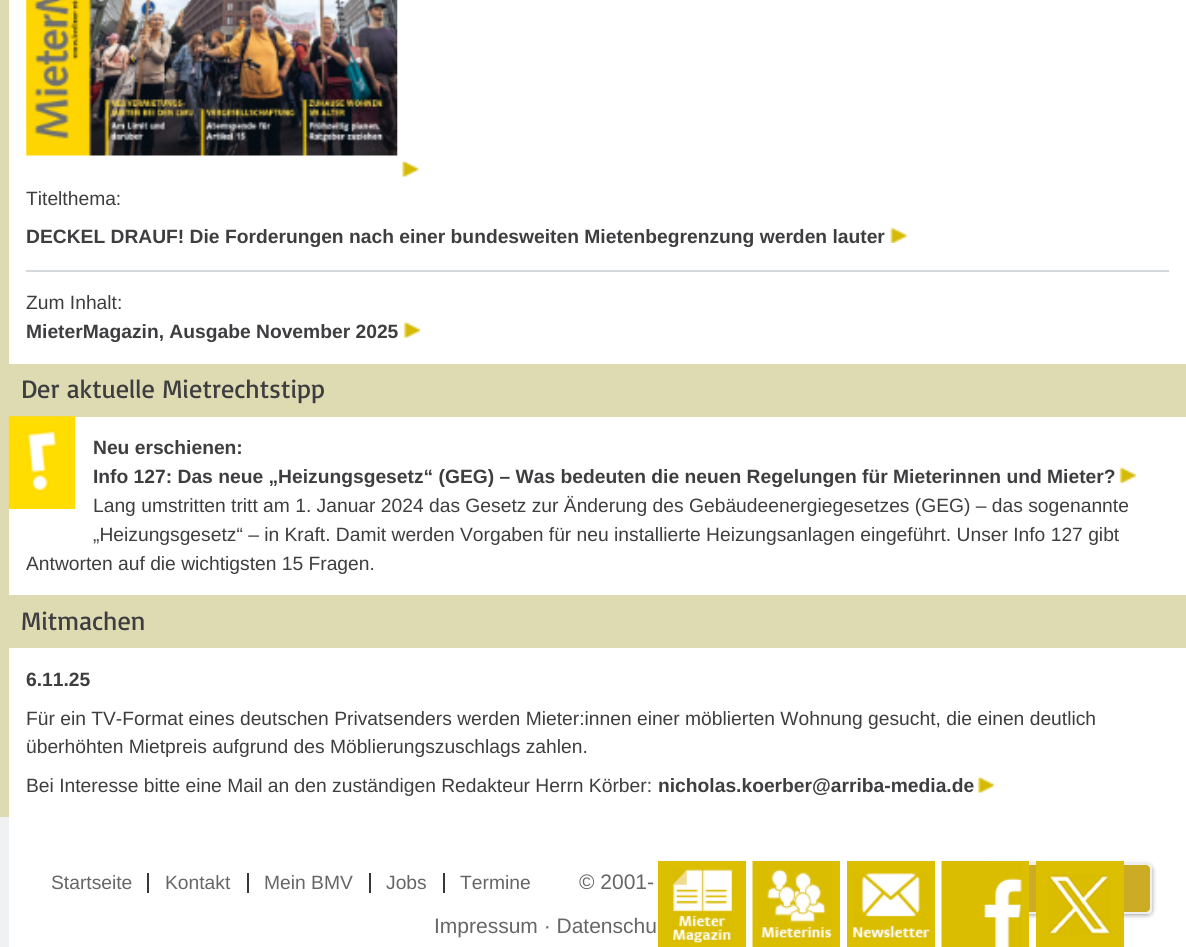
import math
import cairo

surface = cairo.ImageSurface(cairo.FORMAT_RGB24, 1186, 947)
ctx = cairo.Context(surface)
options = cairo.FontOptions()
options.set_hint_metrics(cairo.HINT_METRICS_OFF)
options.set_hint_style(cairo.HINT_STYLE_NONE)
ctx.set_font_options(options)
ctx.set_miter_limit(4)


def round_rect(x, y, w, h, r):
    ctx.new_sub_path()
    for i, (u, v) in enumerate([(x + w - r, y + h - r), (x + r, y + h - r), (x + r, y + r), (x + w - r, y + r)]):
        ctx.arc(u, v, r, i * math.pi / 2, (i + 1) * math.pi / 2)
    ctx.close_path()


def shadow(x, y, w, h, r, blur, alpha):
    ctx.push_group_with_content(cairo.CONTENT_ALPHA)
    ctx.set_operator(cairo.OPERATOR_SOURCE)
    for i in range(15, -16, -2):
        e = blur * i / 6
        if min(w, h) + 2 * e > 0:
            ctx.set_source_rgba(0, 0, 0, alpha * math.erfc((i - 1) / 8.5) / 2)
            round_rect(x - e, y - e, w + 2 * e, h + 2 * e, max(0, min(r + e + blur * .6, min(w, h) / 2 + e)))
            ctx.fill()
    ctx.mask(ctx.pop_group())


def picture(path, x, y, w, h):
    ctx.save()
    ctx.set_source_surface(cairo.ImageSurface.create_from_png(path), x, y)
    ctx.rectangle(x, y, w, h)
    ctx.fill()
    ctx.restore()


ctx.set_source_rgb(1, 1, 1)
ctx.paint()
ctx.set_source_rgb(0.871, 0.859, 0.702)
ctx.rectangle(0, 0, 9, 364)
ctx.fill()
picture("img1.png", 26, 0, 372, 156)
picture("img2.png", 402, 160, 17, 17)
ctx.select_font_face("Liberation Sans")
ctx.set_font_size(19.25)
ctx.set_source_rgb(0.243, 0.239, 0.251)
ctx.move_to(26, 205)
ctx.show_text("Titelthema:")
ctx.select_font_face("Liberation Sans", cairo.FONT_SLANT_NORMAL, cairo.FONT_WEIGHT_BOLD)
ctx.move_to(26, 243)
ctx.show_text("DECKEL DRAUF! Die Forderungen nach einer bundesweiten Mietenbegrenzung werden lauter")
picture("img3.png", 890, 227, 17, 16)
ctx.set_source_rgb(0.831, 0.847, 0.855)
ctx.rectangle(26, 270, 1143, 2)
ctx.fill()
ctx.select_font_face("Liberation Sans")
ctx.set_source_rgb(0.243, 0.239, 0.251)
ctx.move_to(26, 309)
ctx.show_text("Zum Inhalt:")
ctx.select_font_face("Liberation Sans", cairo.FONT_SLANT_NORMAL, cairo.FONT_WEIGHT_BOLD)
ctx.move_to(26, 338)
ctx.show_text("MieterMagazin, Ausgabe November 2025")
picture("img4.png", 403, 321, 17, 17)
ctx.set_source_rgb(0.871, 0.859, 0.702)
ctx.rectangle(0, 364, 1186, 53)
ctx.fill()
ctx.select_font_face("Basic")
ctx.set_font_size(26.25)
ctx.set_source_rgb(0.243, 0.239, 0.251)
ctx.move_to(21, 398)
ctx.show_text("Der aktuelle Mietrechtstipp")
ctx.set_source_rgb(0.871, 0.859, 0.702)
ctx.rectangle(0, 417, 9, 178)
ctx.fill()
picture("img5.png", 8, 416, 68, 93)
ctx.select_font_face("Liberation Sans", cairo.FONT_SLANT_NORMAL, cairo.FONT_WEIGHT_BOLD)
ctx.set_font_size(19.25)
ctx.set_source_rgb(0.243, 0.239, 0.251)
ctx.move_to(93, 454)
ctx.show_text("Neu erschienen:")
ctx.move_to(93, 483)
ctx.show_text("Info 127: Das neue „Heizungsgesetz“ (GEG) – Was bedeuten die neuen Regelungen für Mieterinnen und Mieter?")
picture("img6.png", 1119, 466, 17, 17)
ctx.select_font_face("Liberation Sans")
ctx.move_to(93, 512)
ctx.show_text("Lang umstritten tritt am 1. Januar 2024 das Gesetz zur Änderung des Gebäudeenergiegesetzes (GEG) – das sogenannte")
ctx.move_to(93, 541)
ctx.show_text("„Heizungsgesetz“ – in Kraft. Damit werden Vorgaben für neu installierte Heizungsanlagen eingeführt. Unser Info 127 gibt")
ctx.move_to(26, 570)
ctx.show_text("Antworten auf die wichtigsten 15 Fragen.")
ctx.set_source_rgb(0.871, 0.859, 0.702)
ctx.rectangle(0, 595, 1186, 53)
ctx.fill()
ctx.select_font_face("Basic")
ctx.set_font_size(26.25)
ctx.set_source_rgb(0.243, 0.239, 0.251)
ctx.move_to(21, 630)
ctx.show_text("Mitmachen")
ctx.set_source_rgb(0.871, 0.859, 0.702)
ctx.rectangle(0, 648, 9, 169)
ctx.fill()
ctx.select_font_face("Liberation Sans", cairo.FONT_SLANT_NORMAL, cairo.FONT_WEIGHT_BOLD)
ctx.set_font_size(19.25)
ctx.set_source_rgb(0.243, 0.239, 0.251)
ctx.move_to(26, 686)
ctx.show_text("6.11.25")
ctx.select_font_face("Liberation Sans")
ctx.move_to(26, 725)
ctx.show_text("Für ein TV-Format eines deutschen Privatsenders werden Mieter:innen einer möblierten Wohnung gesucht, die einen deutlich")
ctx.move_to(26, 753)
ctx.show_text("überhöhten Mietpreis aufgrund des Möblierungszuschlags zahlen.")
ctx.move_to(26, 792)
ctx.show_text("Bei Interesse bitte eine Mail an den zuständigen Redakteur Herrn Körber:")
ctx.select_font_face("Liberation Sans", cairo.FONT_SLANT_NORMAL, cairo.FONT_WEIGHT_BOLD)
ctx.move_to(658, 792)
ctx.show_text("nicholas.koerber@arriba-media.de")
picture("img4.png", 977, 776, 17, 17)
ctx.set_source_rgb(0.941, 0.945, 0.949)
ctx.rectangle(0, 817, 9, 130)
ctx.fill()
ctx.set_source_rgb(0.216, 0.216, 0.216)
ctx.rectangle(147, 873, 2, 20)
ctx.fill()
ctx.select_font_face("Liberation Sans")
ctx.set_source_rgb(0.4, 0.4, 0.4)
ctx.move_to(51, 889)
ctx.show_text("Startseite")
ctx.set_source_rgb(0.216, 0.216, 0.216)
ctx.rectangle(247, 873, 2, 20)
ctx.fill()
ctx.set_source_rgb(0.4, 0.4, 0.4)
ctx.move_to(165, 889)
ctx.show_text("Kontakt")
ctx.set_source_rgb(0.216, 0.216, 0.216)
ctx.rectangle(369, 873, 2, 20)
ctx.fill()
ctx.set_source_rgb(0.4, 0.4, 0.4)
ctx.move_to(264, 889)
ctx.show_text("Mein BMV")
ctx.set_source_rgb(0.216, 0.216, 0.216)
ctx.rectangle(443, 873, 2, 20)
ctx.fill()
ctx.set_source_rgb(0.4, 0.4, 0.4)
ctx.move_to(386, 889)
ctx.show_text("Jobs")
ctx.move_to(460, 889)
ctx.show_text("Termine")
ctx.set_font_size(21)
ctx.move_to(579, 889)
ctx.show_text("© 2001-")
ctx.move_to(434, 933)
ctx.show_text("Impressum · Datenschu")
ctx.save()
ctx.set_fill_rule(cairo.FILL_RULE_EVEN_ODD)
ctx.new_path()
ctx.move_to(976, 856)
ctx.line_to(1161, 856)
ctx.line_to(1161, 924)
ctx.line_to(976, 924)
ctx.close_path()
ctx.move_to(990, 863)
ctx.line_to(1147, 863)
ctx.curve_to(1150, 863, 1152, 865, 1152, 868)
ctx.line_to(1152, 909)
ctx.curve_to(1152, 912, 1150, 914, 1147, 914)
ctx.line_to(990, 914)
ctx.curve_to(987, 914, 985, 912, 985, 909)
ctx.line_to(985, 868)
ctx.curve_to(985, 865, 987, 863, 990, 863)
ctx.close_path()
ctx.clip()
ctx.set_source_rgb(0, 0, 0)
shadow(985, 865, 167, 50, 5, 2.5, 0.4)
ctx.restore()
ctx.set_source_rgba(0.796, 0.671, 0.137, 0.99)
round_rect(987, 865, 163, 47, 4)
ctx.fill()
round_rect(986, 864, 165, 49, 4)
ctx.set_source_rgba(0.933, 0.933, 0.933, 0.99)
ctx.stroke()
ctx.set_source_rgb(0.859, 0.749, 0)
ctx.rectangle(658, 861, 88, 86)
ctx.fill()
picture("img7.png", 672, 869, 60, 74)
ctx.rectangle(832, 861, 8, 86)
ctx.fill()
picture("img8.png", 752, 861, 80, 86)
ctx.rectangle(847, 861, 88, 86)
ctx.fill()
picture("img9.png", 853, 873, 77, 65)
ctx.rectangle(1022, 861, 7, 86)
ctx.fill()
picture("img10.png", 941, 861, 81, 86)
ctx.rectangle(1036, 861, 88, 86)
ctx.fill()
picture("img11.png", 1048, 874, 63, 61)
surface.write_to_png("page.png")
